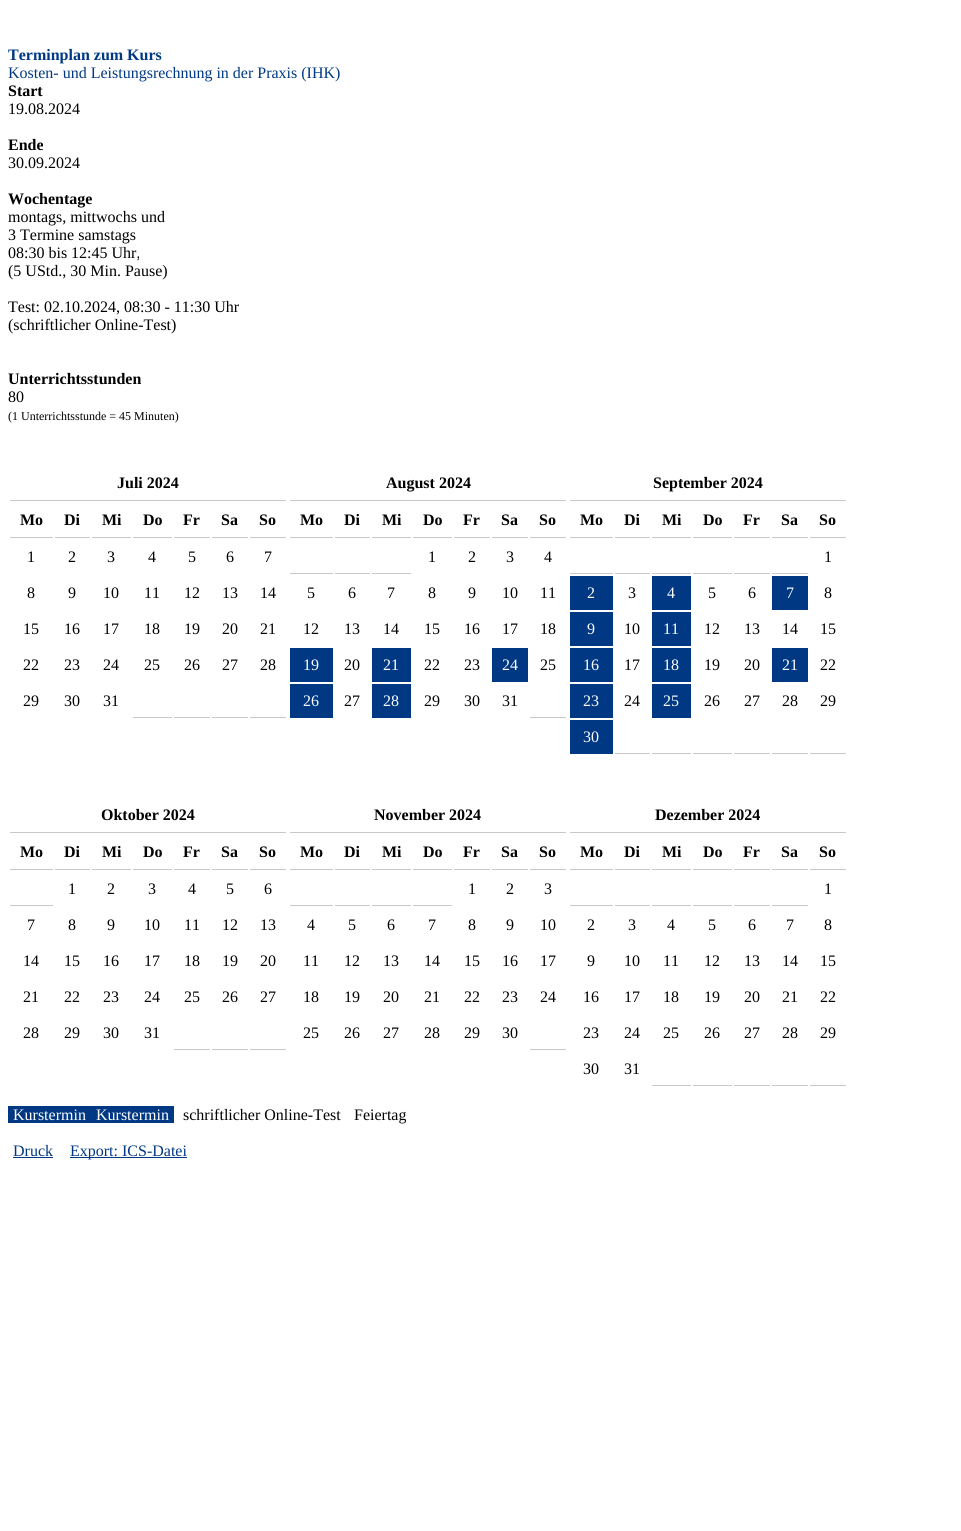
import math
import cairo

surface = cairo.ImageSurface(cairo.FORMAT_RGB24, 961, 1531)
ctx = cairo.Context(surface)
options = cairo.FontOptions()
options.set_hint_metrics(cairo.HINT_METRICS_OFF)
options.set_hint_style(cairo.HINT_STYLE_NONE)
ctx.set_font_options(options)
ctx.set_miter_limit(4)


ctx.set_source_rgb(1, 1, 1)
ctx.paint()
ctx.select_font_face("Liberation Serif", cairo.FONT_SLANT_NORMAL, cairo.FONT_WEIGHT_BOLD)
ctx.set_font_size(16)
ctx.set_source_rgb(0, 0.22, 0.514)
ctx.move_to(8, 60)
ctx.show_text("Terminplan zum Kurs")
ctx.select_font_face("Liberation Serif")
ctx.move_to(8, 78)
ctx.show_text("Kosten- und Leistungsrechnung in der Praxis (IHK)")
ctx.select_font_face("Liberation Serif", cairo.FONT_SLANT_NORMAL, cairo.FONT_WEIGHT_BOLD)
ctx.set_source_rgb(0, 0, 0)
ctx.move_to(8, 96)
ctx.show_text("Start")
ctx.select_font_face("Liberation Serif")
ctx.move_to(8, 114)
ctx.show_text("19.08.2024")
ctx.select_font_face("Liberation Serif", cairo.FONT_SLANT_NORMAL, cairo.FONT_WEIGHT_BOLD)
ctx.move_to(8, 150)
ctx.show_text("Ende")
ctx.select_font_face("Liberation Serif")
ctx.move_to(8, 168)
ctx.show_text("30.09.2024")
ctx.select_font_face("Liberation Serif", cairo.FONT_SLANT_NORMAL, cairo.FONT_WEIGHT_BOLD)
ctx.move_to(8, 204)
ctx.show_text("Wochentage")
ctx.select_font_face("Liberation Serif")
ctx.move_to(8, 222)
ctx.show_text("montags, mittwochs und")
ctx.move_to(8, 240)
ctx.show_text("3 Termine samstags")
ctx.move_to(8, 258)
ctx.show_text("08:30 bis 12:45 Uhr,")
ctx.move_to(8, 276)
ctx.show_text("(5 UStd., 30 Min. Pause)")
ctx.move_to(8, 312)
ctx.show_text("Test: 02.10.2024, 08:30 - 11:30 Uhr")
ctx.move_to(8, 330)
ctx.show_text("(schriftlicher Online-Test)")
ctx.select_font_face("Liberation Serif", cairo.FONT_SLANT_NORMAL, cairo.FONT_WEIGHT_BOLD)
ctx.move_to(8, 384)
ctx.show_text("Unterrichtsstunden")
ctx.select_font_face("Liberation Serif")
ctx.move_to(8, 402)
ctx.show_text("80")
ctx.set_font_size(12)
ctx.move_to(8, 420)
ctx.show_text("(1 Unterrichtsstunde = 45 Minuten)")
ctx.set_source_rgb(0.784, 0.784, 0.784)
ctx.rectangle(10, 500, 276, 1)
ctx.fill()
ctx.select_font_face("Liberation Serif", cairo.FONT_SLANT_NORMAL, cairo.FONT_WEIGHT_BOLD)
ctx.set_font_size(16)
ctx.set_source_rgb(0, 0, 0)
ctx.move_to(117, 488)
ctx.show_text("Juli 2024")
ctx.set_source_rgb(0.784, 0.784, 0.784)
ctx.rectangle(10, 537, 43, 1)
ctx.fill()
ctx.set_source_rgb(0, 0, 0)
ctx.move_to(20, 525)
ctx.show_text("Mo")
ctx.set_source_rgb(0.784, 0.784, 0.784)
ctx.rectangle(55, 537, 35, 1)
ctx.fill()
ctx.set_source_rgb(0, 0, 0)
ctx.move_to(64, 525)
ctx.show_text("Di")
ctx.set_source_rgb(0.784, 0.784, 0.784)
ctx.rectangle(92, 537, 39, 1)
ctx.fill()
ctx.set_source_rgb(0, 0, 0)
ctx.move_to(102, 525)
ctx.show_text("Mi")
ctx.set_source_rgb(0.784, 0.784, 0.784)
ctx.rectangle(133, 537, 39, 1)
ctx.fill()
ctx.set_source_rgb(0, 0, 0)
ctx.move_to(143, 525)
ctx.show_text("Do")
ctx.set_source_rgb(0.784, 0.784, 0.784)
ctx.rectangle(174, 537, 36, 1)
ctx.fill()
ctx.set_source_rgb(0, 0, 0)
ctx.move_to(183, 525)
ctx.show_text("Fr")
ctx.set_source_rgb(0.784, 0.784, 0.784)
ctx.rectangle(212, 537, 36, 1)
ctx.fill()
ctx.set_source_rgb(0, 0, 0)
ctx.move_to(221, 525)
ctx.show_text("Sa")
ctx.set_source_rgb(0.784, 0.784, 0.784)
ctx.rectangle(250, 537, 36, 1)
ctx.fill()
ctx.set_source_rgb(0, 0, 0)
ctx.move_to(259, 525)
ctx.show_text("So")
ctx.select_font_face("Liberation Serif")
ctx.move_to(27, 562)
ctx.show_text("1")
ctx.move_to(68, 562)
ctx.show_text("2")
ctx.move_to(107, 562)
ctx.show_text("3")
ctx.move_to(148, 562)
ctx.show_text("4")
ctx.move_to(188, 562)
ctx.show_text("5")
ctx.move_to(226, 562)
ctx.show_text("6")
ctx.move_to(264, 562)
ctx.show_text("7")
ctx.move_to(27, 598)
ctx.show_text("8")
ctx.move_to(68, 598)
ctx.show_text("9")
ctx.move_to(103, 598)
ctx.show_text("10")
ctx.move_to(144, 598)
ctx.show_text("11")
ctx.move_to(184, 598)
ctx.show_text("12")
ctx.move_to(222, 598)
ctx.show_text("13")
ctx.move_to(260, 598)
ctx.show_text("14")
ctx.move_to(23, 634)
ctx.show_text("15")
ctx.move_to(64, 634)
ctx.show_text("16")
ctx.move_to(103, 634)
ctx.show_text("17")
ctx.move_to(144, 634)
ctx.show_text("18")
ctx.move_to(184, 634)
ctx.show_text("19")
ctx.move_to(222, 634)
ctx.show_text("20")
ctx.move_to(260, 634)
ctx.show_text("21")
ctx.move_to(23, 670)
ctx.show_text("22")
ctx.move_to(64, 670)
ctx.show_text("23")
ctx.move_to(103, 670)
ctx.show_text("24")
ctx.move_to(144, 670)
ctx.show_text("25")
ctx.move_to(184, 670)
ctx.show_text("26")
ctx.move_to(222, 670)
ctx.show_text("27")
ctx.move_to(260, 670)
ctx.show_text("28")
ctx.move_to(23, 706)
ctx.show_text("29")
ctx.move_to(64, 706)
ctx.show_text("30")
ctx.move_to(103, 706)
ctx.show_text("31")
ctx.set_source_rgb(0.784, 0.784, 0.784)
ctx.rectangle(133, 717, 39, 1)
ctx.fill()
ctx.rectangle(174, 717, 36, 1)
ctx.fill()
ctx.rectangle(212, 717, 36, 1)
ctx.fill()
ctx.rectangle(250, 717, 36, 1)
ctx.fill()
ctx.rectangle(290, 500, 276, 1)
ctx.fill()
ctx.select_font_face("Liberation Serif", cairo.FONT_SLANT_NORMAL, cairo.FONT_WEIGHT_BOLD)
ctx.set_source_rgb(0, 0, 0)
ctx.move_to(386, 488)
ctx.show_text("August 2024")
ctx.set_source_rgb(0.784, 0.784, 0.784)
ctx.rectangle(290, 537, 43, 1)
ctx.fill()
ctx.set_source_rgb(0, 0, 0)
ctx.move_to(300, 525)
ctx.show_text("Mo")
ctx.set_source_rgb(0.784, 0.784, 0.784)
ctx.rectangle(335, 537, 35, 1)
ctx.fill()
ctx.set_source_rgb(0, 0, 0)
ctx.move_to(344, 525)
ctx.show_text("Di")
ctx.set_source_rgb(0.784, 0.784, 0.784)
ctx.rectangle(372, 537, 39, 1)
ctx.fill()
ctx.set_source_rgb(0, 0, 0)
ctx.move_to(382, 525)
ctx.show_text("Mi")
ctx.set_source_rgb(0.784, 0.784, 0.784)
ctx.rectangle(413, 537, 39, 1)
ctx.fill()
ctx.set_source_rgb(0, 0, 0)
ctx.move_to(423, 525)
ctx.show_text("Do")
ctx.set_source_rgb(0.784, 0.784, 0.784)
ctx.rectangle(454, 537, 36, 1)
ctx.fill()
ctx.set_source_rgb(0, 0, 0)
ctx.move_to(463, 525)
ctx.show_text("Fr")
ctx.set_source_rgb(0.784, 0.784, 0.784)
ctx.rectangle(492, 537, 36, 1)
ctx.fill()
ctx.set_source_rgb(0, 0, 0)
ctx.move_to(501, 525)
ctx.show_text("Sa")
ctx.set_source_rgb(0.784, 0.784, 0.784)
ctx.rectangle(530, 537, 36, 1)
ctx.fill()
ctx.set_source_rgb(0, 0, 0)
ctx.move_to(539, 525)
ctx.show_text("So")
ctx.select_font_face("Liberation Serif")
ctx.move_to(428, 562)
ctx.show_text("1")
ctx.move_to(468, 562)
ctx.show_text("2")
ctx.move_to(506, 562)
ctx.show_text("3")
ctx.move_to(544, 562)
ctx.show_text("4")
ctx.set_source_rgb(0.784, 0.784, 0.784)
ctx.rectangle(290, 573, 43, 1)
ctx.fill()
ctx.rectangle(335, 573, 35, 1)
ctx.fill()
ctx.rectangle(372, 573, 39, 1)
ctx.fill()
ctx.set_source_rgb(0, 0, 0)
ctx.move_to(307, 598)
ctx.show_text("5")
ctx.move_to(348, 598)
ctx.show_text("6")
ctx.move_to(387, 598)
ctx.show_text("7")
ctx.move_to(428, 598)
ctx.show_text("8")
ctx.move_to(468, 598)
ctx.show_text("9")
ctx.move_to(502, 598)
ctx.show_text("10")
ctx.move_to(540, 598)
ctx.show_text("11")
ctx.move_to(303, 634)
ctx.show_text("12")
ctx.move_to(344, 634)
ctx.show_text("13")
ctx.move_to(383, 634)
ctx.show_text("14")
ctx.move_to(424, 634)
ctx.show_text("15")
ctx.move_to(464, 634)
ctx.show_text("16")
ctx.move_to(502, 634)
ctx.show_text("17")
ctx.move_to(540, 634)
ctx.show_text("18")
ctx.set_source_rgb(0, 0.22, 0.514)
ctx.rectangle(290, 648, 43, 34)
ctx.fill()
ctx.set_source_rgb(1, 1, 1)
ctx.move_to(303, 670)
ctx.show_text("19")
ctx.set_source_rgb(0, 0, 0)
ctx.move_to(344, 670)
ctx.show_text("20")
ctx.set_source_rgb(0, 0.22, 0.514)
ctx.rectangle(372, 648, 39, 34)
ctx.fill()
ctx.set_source_rgb(1, 1, 1)
ctx.move_to(383, 670)
ctx.show_text("21")
ctx.set_source_rgb(0, 0, 0)
ctx.move_to(424, 670)
ctx.show_text("22")
ctx.move_to(464, 670)
ctx.show_text("23")
ctx.set_source_rgb(0, 0.22, 0.514)
ctx.rectangle(492, 648, 36, 34)
ctx.fill()
ctx.set_source_rgb(1, 1, 1)
ctx.move_to(502, 670)
ctx.show_text("24")
ctx.set_source_rgb(0, 0, 0)
ctx.move_to(540, 670)
ctx.show_text("25")
ctx.set_source_rgb(0, 0.22, 0.514)
ctx.rectangle(290, 684, 43, 34)
ctx.fill()
ctx.set_source_rgb(1, 1, 1)
ctx.move_to(303, 706)
ctx.show_text("26")
ctx.set_source_rgb(0, 0, 0)
ctx.move_to(344, 706)
ctx.show_text("27")
ctx.set_source_rgb(0, 0.22, 0.514)
ctx.rectangle(372, 684, 39, 34)
ctx.fill()
ctx.set_source_rgb(1, 1, 1)
ctx.move_to(383, 706)
ctx.show_text("28")
ctx.set_source_rgb(0, 0, 0)
ctx.move_to(424, 706)
ctx.show_text("29")
ctx.move_to(464, 706)
ctx.show_text("30")
ctx.move_to(502, 706)
ctx.show_text("31")
ctx.set_source_rgb(0.784, 0.784, 0.784)
ctx.rectangle(530, 717, 36, 1)
ctx.fill()
ctx.rectangle(570, 500, 276, 1)
ctx.fill()
ctx.select_font_face("Liberation Serif", cairo.FONT_SLANT_NORMAL, cairo.FONT_WEIGHT_BOLD)
ctx.set_source_rgb(0, 0, 0)
ctx.move_to(653, 488)
ctx.show_text("September 2024")
ctx.set_source_rgb(0.784, 0.784, 0.784)
ctx.rectangle(570, 537, 43, 1)
ctx.fill()
ctx.set_source_rgb(0, 0, 0)
ctx.move_to(580, 525)
ctx.show_text("Mo")
ctx.set_source_rgb(0.784, 0.784, 0.784)
ctx.rectangle(615, 537, 35, 1)
ctx.fill()
ctx.set_source_rgb(0, 0, 0)
ctx.move_to(624, 525)
ctx.show_text("Di")
ctx.set_source_rgb(0.784, 0.784, 0.784)
ctx.rectangle(652, 537, 39, 1)
ctx.fill()
ctx.set_source_rgb(0, 0, 0)
ctx.move_to(662, 525)
ctx.show_text("Mi")
ctx.set_source_rgb(0.784, 0.784, 0.784)
ctx.rectangle(693, 537, 39, 1)
ctx.fill()
ctx.set_source_rgb(0, 0, 0)
ctx.move_to(703, 525)
ctx.show_text("Do")
ctx.set_source_rgb(0.784, 0.784, 0.784)
ctx.rectangle(734, 537, 36, 1)
ctx.fill()
ctx.set_source_rgb(0, 0, 0)
ctx.move_to(743, 525)
ctx.show_text("Fr")
ctx.set_source_rgb(0.784, 0.784, 0.784)
ctx.rectangle(772, 537, 36, 1)
ctx.fill()
ctx.set_source_rgb(0, 0, 0)
ctx.move_to(781, 525)
ctx.show_text("Sa")
ctx.set_source_rgb(0.784, 0.784, 0.784)
ctx.rectangle(810, 537, 36, 1)
ctx.fill()
ctx.set_source_rgb(0, 0, 0)
ctx.move_to(819, 525)
ctx.show_text("So")
ctx.select_font_face("Liberation Serif")
ctx.move_to(824, 562)
ctx.show_text("1")
ctx.set_source_rgb(0.784, 0.784, 0.784)
ctx.rectangle(570, 573, 43, 1)
ctx.fill()
ctx.rectangle(615, 573, 35, 1)
ctx.fill()
ctx.rectangle(652, 573, 39, 1)
ctx.fill()
ctx.rectangle(693, 573, 39, 1)
ctx.fill()
ctx.rectangle(734, 573, 36, 1)
ctx.fill()
ctx.rectangle(772, 573, 36, 1)
ctx.fill()
ctx.set_source_rgb(0, 0.22, 0.514)
ctx.rectangle(570, 576, 43, 34)
ctx.fill()
ctx.set_source_rgb(1, 1, 1)
ctx.move_to(587, 598)
ctx.show_text("2")
ctx.set_source_rgb(0, 0, 0)
ctx.move_to(628, 598)
ctx.show_text("3")
ctx.set_source_rgb(0, 0.22, 0.514)
ctx.rectangle(652, 576, 39, 34)
ctx.fill()
ctx.set_source_rgb(1, 1, 1)
ctx.move_to(667, 598)
ctx.show_text("4")
ctx.set_source_rgb(0, 0, 0)
ctx.move_to(708, 598)
ctx.show_text("5")
ctx.move_to(748, 598)
ctx.show_text("6")
ctx.set_source_rgb(0, 0.22, 0.514)
ctx.rectangle(772, 576, 36, 34)
ctx.fill()
ctx.set_source_rgb(1, 1, 1)
ctx.move_to(786, 598)
ctx.show_text("7")
ctx.set_source_rgb(0, 0, 0)
ctx.move_to(824, 598)
ctx.show_text("8")
ctx.set_source_rgb(0, 0.22, 0.514)
ctx.rectangle(570, 612, 43, 34)
ctx.fill()
ctx.set_source_rgb(1, 1, 1)
ctx.move_to(587, 634)
ctx.show_text("9")
ctx.set_source_rgb(0, 0, 0)
ctx.move_to(624, 634)
ctx.show_text("10")
ctx.set_source_rgb(0, 0.22, 0.514)
ctx.rectangle(652, 612, 39, 34)
ctx.fill()
ctx.set_source_rgb(1, 1, 1)
ctx.move_to(663, 634)
ctx.show_text("11")
ctx.set_source_rgb(0, 0, 0)
ctx.move_to(704, 634)
ctx.show_text("12")
ctx.move_to(744, 634)
ctx.show_text("13")
ctx.move_to(782, 634)
ctx.show_text("14")
ctx.move_to(820, 634)
ctx.show_text("15")
ctx.set_source_rgb(0, 0.22, 0.514)
ctx.rectangle(570, 648, 43, 34)
ctx.fill()
ctx.set_source_rgb(1, 1, 1)
ctx.move_to(583, 670)
ctx.show_text("16")
ctx.set_source_rgb(0, 0, 0)
ctx.move_to(624, 670)
ctx.show_text("17")
ctx.set_source_rgb(0, 0.22, 0.514)
ctx.rectangle(652, 648, 39, 34)
ctx.fill()
ctx.set_source_rgb(1, 1, 1)
ctx.move_to(663, 670)
ctx.show_text("18")
ctx.set_source_rgb(0, 0, 0)
ctx.move_to(704, 670)
ctx.show_text("19")
ctx.move_to(744, 670)
ctx.show_text("20")
ctx.set_source_rgb(0, 0.22, 0.514)
ctx.rectangle(772, 648, 36, 34)
ctx.fill()
ctx.set_source_rgb(1, 1, 1)
ctx.move_to(782, 670)
ctx.show_text("21")
ctx.set_source_rgb(0, 0, 0)
ctx.move_to(820, 670)
ctx.show_text("22")
ctx.set_source_rgb(0, 0.22, 0.514)
ctx.rectangle(570, 684, 43, 34)
ctx.fill()
ctx.set_source_rgb(1, 1, 1)
ctx.move_to(583, 706)
ctx.show_text("23")
ctx.set_source_rgb(0, 0, 0)
ctx.move_to(624, 706)
ctx.show_text("24")
ctx.set_source_rgb(0, 0.22, 0.514)
ctx.rectangle(652, 684, 39, 34)
ctx.fill()
ctx.set_source_rgb(1, 1, 1)
ctx.move_to(663, 706)
ctx.show_text("25")
ctx.set_source_rgb(0, 0, 0)
ctx.move_to(704, 706)
ctx.show_text("26")
ctx.move_to(744, 706)
ctx.show_text("27")
ctx.move_to(782, 706)
ctx.show_text("28")
ctx.move_to(820, 706)
ctx.show_text("29")
ctx.set_source_rgb(0, 0.22, 0.514)
ctx.rectangle(570, 720, 43, 34)
ctx.fill()
ctx.set_source_rgb(1, 1, 1)
ctx.move_to(583, 742)
ctx.show_text("30")
ctx.set_source_rgb(0.784, 0.784, 0.784)
ctx.rectangle(615, 753, 35, 1)
ctx.fill()
ctx.rectangle(652, 753, 39, 1)
ctx.fill()
ctx.rectangle(693, 753, 39, 1)
ctx.fill()
ctx.rectangle(734, 753, 36, 1)
ctx.fill()
ctx.rectangle(772, 753, 36, 1)
ctx.fill()
ctx.rectangle(810, 753, 36, 1)
ctx.fill()
ctx.rectangle(10, 832, 276, 1)
ctx.fill()
ctx.select_font_face("Liberation Serif", cairo.FONT_SLANT_NORMAL, cairo.FONT_WEIGHT_BOLD)
ctx.set_source_rgb(0, 0, 0)
ctx.move_to(101, 820)
ctx.show_text("Oktober 2024")
ctx.set_source_rgb(0.784, 0.784, 0.784)
ctx.rectangle(10, 869, 43, 1)
ctx.fill()
ctx.set_source_rgb(0, 0, 0)
ctx.move_to(20, 857)
ctx.show_text("Mo")
ctx.set_source_rgb(0.784, 0.784, 0.784)
ctx.rectangle(55, 869, 35, 1)
ctx.fill()
ctx.set_source_rgb(0, 0, 0)
ctx.move_to(64, 857)
ctx.show_text("Di")
ctx.set_source_rgb(0.784, 0.784, 0.784)
ctx.rectangle(92, 869, 39, 1)
ctx.fill()
ctx.set_source_rgb(0, 0, 0)
ctx.move_to(102, 857)
ctx.show_text("Mi")
ctx.set_source_rgb(0.784, 0.784, 0.784)
ctx.rectangle(133, 869, 39, 1)
ctx.fill()
ctx.set_source_rgb(0, 0, 0)
ctx.move_to(143, 857)
ctx.show_text("Do")
ctx.set_source_rgb(0.784, 0.784, 0.784)
ctx.rectangle(174, 869, 36, 1)
ctx.fill()
ctx.set_source_rgb(0, 0, 0)
ctx.move_to(183, 857)
ctx.show_text("Fr")
ctx.set_source_rgb(0.784, 0.784, 0.784)
ctx.rectangle(212, 869, 36, 1)
ctx.fill()
ctx.set_source_rgb(0, 0, 0)
ctx.move_to(221, 857)
ctx.show_text("Sa")
ctx.set_source_rgb(0.784, 0.784, 0.784)
ctx.rectangle(250, 869, 36, 1)
ctx.fill()
ctx.set_source_rgb(0, 0, 0)
ctx.move_to(259, 857)
ctx.show_text("So")
ctx.select_font_face("Liberation Serif")
ctx.move_to(68, 894)
ctx.show_text("1")
ctx.move_to(107, 894)
ctx.show_text("2")
ctx.move_to(148, 894)
ctx.show_text("3")
ctx.move_to(188, 894)
ctx.show_text("4")
ctx.move_to(226, 894)
ctx.show_text("5")
ctx.move_to(264, 894)
ctx.show_text("6")
ctx.set_source_rgb(0.784, 0.784, 0.784)
ctx.rectangle(10, 905, 43, 1)
ctx.fill()
ctx.set_source_rgb(0, 0, 0)
ctx.move_to(27, 930)
ctx.show_text("7")
ctx.move_to(68, 930)
ctx.show_text("8")
ctx.move_to(107, 930)
ctx.show_text("9")
ctx.move_to(144, 930)
ctx.show_text("10")
ctx.move_to(184, 930)
ctx.show_text("11")
ctx.move_to(222, 930)
ctx.show_text("12")
ctx.move_to(260, 930)
ctx.show_text("13")
ctx.move_to(23, 966)
ctx.show_text("14")
ctx.move_to(64, 966)
ctx.show_text("15")
ctx.move_to(103, 966)
ctx.show_text("16")
ctx.move_to(144, 966)
ctx.show_text("17")
ctx.move_to(184, 966)
ctx.show_text("18")
ctx.move_to(222, 966)
ctx.show_text("19")
ctx.move_to(260, 966)
ctx.show_text("20")
ctx.move_to(23, 1002)
ctx.show_text("21")
ctx.move_to(64, 1002)
ctx.show_text("22")
ctx.move_to(103, 1002)
ctx.show_text("23")
ctx.move_to(144, 1002)
ctx.show_text("24")
ctx.move_to(184, 1002)
ctx.show_text("25")
ctx.move_to(222, 1002)
ctx.show_text("26")
ctx.move_to(260, 1002)
ctx.show_text("27")
ctx.move_to(23, 1038)
ctx.show_text("28")
ctx.move_to(64, 1038)
ctx.show_text("29")
ctx.move_to(103, 1038)
ctx.show_text("30")
ctx.move_to(144, 1038)
ctx.show_text("31")
ctx.set_source_rgb(0.784, 0.784, 0.784)
ctx.rectangle(174, 1049, 36, 1)
ctx.fill()
ctx.rectangle(212, 1049, 36, 1)
ctx.fill()
ctx.rectangle(250, 1049, 36, 1)
ctx.fill()
ctx.rectangle(290, 832, 276, 1)
ctx.fill()
ctx.select_font_face("Liberation Serif", cairo.FONT_SLANT_NORMAL, cairo.FONT_WEIGHT_BOLD)
ctx.set_source_rgb(0, 0, 0)
ctx.move_to(374, 820)
ctx.show_text("November 2024")
ctx.set_source_rgb(0.784, 0.784, 0.784)
ctx.rectangle(290, 869, 43, 1)
ctx.fill()
ctx.set_source_rgb(0, 0, 0)
ctx.move_to(300, 857)
ctx.show_text("Mo")
ctx.set_source_rgb(0.784, 0.784, 0.784)
ctx.rectangle(335, 869, 35, 1)
ctx.fill()
ctx.set_source_rgb(0, 0, 0)
ctx.move_to(344, 857)
ctx.show_text("Di")
ctx.set_source_rgb(0.784, 0.784, 0.784)
ctx.rectangle(372, 869, 39, 1)
ctx.fill()
ctx.set_source_rgb(0, 0, 0)
ctx.move_to(382, 857)
ctx.show_text("Mi")
ctx.set_source_rgb(0.784, 0.784, 0.784)
ctx.rectangle(413, 869, 39, 1)
ctx.fill()
ctx.set_source_rgb(0, 0, 0)
ctx.move_to(423, 857)
ctx.show_text("Do")
ctx.set_source_rgb(0.784, 0.784, 0.784)
ctx.rectangle(454, 869, 36, 1)
ctx.fill()
ctx.set_source_rgb(0, 0, 0)
ctx.move_to(463, 857)
ctx.show_text("Fr")
ctx.set_source_rgb(0.784, 0.784, 0.784)
ctx.rectangle(492, 869, 36, 1)
ctx.fill()
ctx.set_source_rgb(0, 0, 0)
ctx.move_to(501, 857)
ctx.show_text("Sa")
ctx.set_source_rgb(0.784, 0.784, 0.784)
ctx.rectangle(530, 869, 36, 1)
ctx.fill()
ctx.set_source_rgb(0, 0, 0)
ctx.move_to(539, 857)
ctx.show_text("So")
ctx.select_font_face("Liberation Serif")
ctx.move_to(468, 894)
ctx.show_text("1")
ctx.move_to(506, 894)
ctx.show_text("2")
ctx.move_to(544, 894)
ctx.show_text("3")
ctx.set_source_rgb(0.784, 0.784, 0.784)
ctx.rectangle(290, 905, 43, 1)
ctx.fill()
ctx.rectangle(335, 905, 35, 1)
ctx.fill()
ctx.rectangle(372, 905, 39, 1)
ctx.fill()
ctx.rectangle(413, 905, 39, 1)
ctx.fill()
ctx.set_source_rgb(0, 0, 0)
ctx.move_to(307, 930)
ctx.show_text("4")
ctx.move_to(348, 930)
ctx.show_text("5")
ctx.move_to(387, 930)
ctx.show_text("6")
ctx.move_to(428, 930)
ctx.show_text("7")
ctx.move_to(468, 930)
ctx.show_text("8")
ctx.move_to(506, 930)
ctx.show_text("9")
ctx.move_to(540, 930)
ctx.show_text("10")
ctx.move_to(303, 966)
ctx.show_text("11")
ctx.move_to(344, 966)
ctx.show_text("12")
ctx.move_to(383, 966)
ctx.show_text("13")
ctx.move_to(424, 966)
ctx.show_text("14")
ctx.move_to(464, 966)
ctx.show_text("15")
ctx.move_to(502, 966)
ctx.show_text("16")
ctx.move_to(540, 966)
ctx.show_text("17")
ctx.move_to(303, 1002)
ctx.show_text("18")
ctx.move_to(344, 1002)
ctx.show_text("19")
ctx.move_to(383, 1002)
ctx.show_text("20")
ctx.move_to(424, 1002)
ctx.show_text("21")
ctx.move_to(464, 1002)
ctx.show_text("22")
ctx.move_to(502, 1002)
ctx.show_text("23")
ctx.move_to(540, 1002)
ctx.show_text("24")
ctx.move_to(303, 1038)
ctx.show_text("25")
ctx.move_to(344, 1038)
ctx.show_text("26")
ctx.move_to(383, 1038)
ctx.show_text("27")
ctx.move_to(424, 1038)
ctx.show_text("28")
ctx.move_to(464, 1038)
ctx.show_text("29")
ctx.move_to(502, 1038)
ctx.show_text("30")
ctx.set_source_rgb(0.784, 0.784, 0.784)
ctx.rectangle(530, 1049, 36, 1)
ctx.fill()
ctx.rectangle(570, 832, 276, 1)
ctx.fill()
ctx.select_font_face("Liberation Serif", cairo.FONT_SLANT_NORMAL, cairo.FONT_WEIGHT_BOLD)
ctx.set_source_rgb(0, 0, 0)
ctx.move_to(655, 820)
ctx.show_text("Dezember 2024")
ctx.set_source_rgb(0.784, 0.784, 0.784)
ctx.rectangle(570, 869, 43, 1)
ctx.fill()
ctx.set_source_rgb(0, 0, 0)
ctx.move_to(580, 857)
ctx.show_text("Mo")
ctx.set_source_rgb(0.784, 0.784, 0.784)
ctx.rectangle(615, 869, 35, 1)
ctx.fill()
ctx.set_source_rgb(0, 0, 0)
ctx.move_to(624, 857)
ctx.show_text("Di")
ctx.set_source_rgb(0.784, 0.784, 0.784)
ctx.rectangle(652, 869, 39, 1)
ctx.fill()
ctx.set_source_rgb(0, 0, 0)
ctx.move_to(662, 857)
ctx.show_text("Mi")
ctx.set_source_rgb(0.784, 0.784, 0.784)
ctx.rectangle(693, 869, 39, 1)
ctx.fill()
ctx.set_source_rgb(0, 0, 0)
ctx.move_to(703, 857)
ctx.show_text("Do")
ctx.set_source_rgb(0.784, 0.784, 0.784)
ctx.rectangle(734, 869, 36, 1)
ctx.fill()
ctx.set_source_rgb(0, 0, 0)
ctx.move_to(743, 857)
ctx.show_text("Fr")
ctx.set_source_rgb(0.784, 0.784, 0.784)
ctx.rectangle(772, 869, 36, 1)
ctx.fill()
ctx.set_source_rgb(0, 0, 0)
ctx.move_to(781, 857)
ctx.show_text("Sa")
ctx.set_source_rgb(0.784, 0.784, 0.784)
ctx.rectangle(810, 869, 36, 1)
ctx.fill()
ctx.set_source_rgb(0, 0, 0)
ctx.move_to(819, 857)
ctx.show_text("So")
ctx.select_font_face("Liberation Serif")
ctx.move_to(824, 894)
ctx.show_text("1")
ctx.set_source_rgb(0.784, 0.784, 0.784)
ctx.rectangle(570, 905, 43, 1)
ctx.fill()
ctx.rectangle(615, 905, 35, 1)
ctx.fill()
ctx.rectangle(652, 905, 39, 1)
ctx.fill()
ctx.rectangle(693, 905, 39, 1)
ctx.fill()
ctx.rectangle(734, 905, 36, 1)
ctx.fill()
ctx.rectangle(772, 905, 36, 1)
ctx.fill()
ctx.set_source_rgb(0, 0, 0)
ctx.move_to(587, 930)
ctx.show_text("2")
ctx.move_to(628, 930)
ctx.show_text("3")
ctx.move_to(667, 930)
ctx.show_text("4")
ctx.move_to(708, 930)
ctx.show_text("5")
ctx.move_to(748, 930)
ctx.show_text("6")
ctx.move_to(786, 930)
ctx.show_text("7")
ctx.move_to(824, 930)
ctx.show_text("8")
ctx.move_to(587, 966)
ctx.show_text("9")
ctx.move_to(624, 966)
ctx.show_text("10")
ctx.move_to(663, 966)
ctx.show_text("11")
ctx.move_to(704, 966)
ctx.show_text("12")
ctx.move_to(744, 966)
ctx.show_text("13")
ctx.move_to(782, 966)
ctx.show_text("14")
ctx.move_to(820, 966)
ctx.show_text("15")
ctx.move_to(583, 1002)
ctx.show_text("16")
ctx.move_to(624, 1002)
ctx.show_text("17")
ctx.move_to(663, 1002)
ctx.show_text("18")
ctx.move_to(704, 1002)
ctx.show_text("19")
ctx.move_to(744, 1002)
ctx.show_text("20")
ctx.move_to(782, 1002)
ctx.show_text("21")
ctx.move_to(820, 1002)
ctx.show_text("22")
ctx.move_to(583, 1038)
ctx.show_text("23")
ctx.move_to(624, 1038)
ctx.show_text("24")
ctx.move_to(663, 1038)
ctx.show_text("25")
ctx.move_to(704, 1038)
ctx.show_text("26")
ctx.move_to(744, 1038)
ctx.show_text("27")
ctx.move_to(782, 1038)
ctx.show_text("28")
ctx.move_to(820, 1038)
ctx.show_text("29")
ctx.move_to(583, 1074)
ctx.show_text("30")
ctx.move_to(624, 1074)
ctx.show_text("31")
ctx.set_source_rgb(0.784, 0.784, 0.784)
ctx.rectangle(652, 1085, 39, 1)
ctx.fill()
ctx.rectangle(693, 1085, 39, 1)
ctx.fill()
ctx.rectangle(734, 1085, 36, 1)
ctx.fill()
ctx.rectangle(772, 1085, 36, 1)
ctx.fill()
ctx.rectangle(810, 1085, 36, 1)
ctx.fill()
ctx.set_source_rgb(0, 0.22, 0.514)
ctx.rectangle(8, 1106, 166, 17)
ctx.fill()
ctx.set_source_rgb(1, 1, 1)
ctx.move_to(13, 1120)
ctx.show_text("Kurstermin")
ctx.move_to(96, 1120)
ctx.show_text("Kurstermin")
ctx.set_source_rgb(0, 0, 0)
ctx.move_to(183, 1120)
ctx.show_text("schriftlicher Online-Test")
ctx.move_to(354, 1120)
ctx.show_text("Feiertag")
ctx.set_source_rgb(0, 0.22, 0.514)
ctx.move_to(13, 1156)
ctx.show_text("Druck")
ctx.rectangle(13, 1157, 40, 1)
ctx.fill()
ctx.rectangle(70, 1157, 117, 1)
ctx.fill()
ctx.move_to(70, 1156)
ctx.show_text("Export: ICS-Datei")
surface.write_to_png("page.png")
